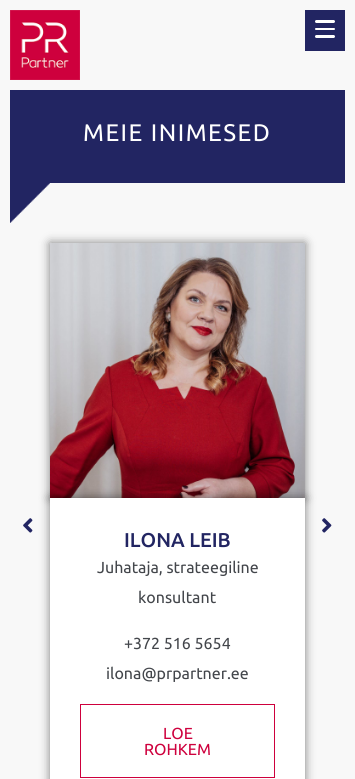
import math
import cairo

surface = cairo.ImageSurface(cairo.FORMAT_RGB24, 355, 779)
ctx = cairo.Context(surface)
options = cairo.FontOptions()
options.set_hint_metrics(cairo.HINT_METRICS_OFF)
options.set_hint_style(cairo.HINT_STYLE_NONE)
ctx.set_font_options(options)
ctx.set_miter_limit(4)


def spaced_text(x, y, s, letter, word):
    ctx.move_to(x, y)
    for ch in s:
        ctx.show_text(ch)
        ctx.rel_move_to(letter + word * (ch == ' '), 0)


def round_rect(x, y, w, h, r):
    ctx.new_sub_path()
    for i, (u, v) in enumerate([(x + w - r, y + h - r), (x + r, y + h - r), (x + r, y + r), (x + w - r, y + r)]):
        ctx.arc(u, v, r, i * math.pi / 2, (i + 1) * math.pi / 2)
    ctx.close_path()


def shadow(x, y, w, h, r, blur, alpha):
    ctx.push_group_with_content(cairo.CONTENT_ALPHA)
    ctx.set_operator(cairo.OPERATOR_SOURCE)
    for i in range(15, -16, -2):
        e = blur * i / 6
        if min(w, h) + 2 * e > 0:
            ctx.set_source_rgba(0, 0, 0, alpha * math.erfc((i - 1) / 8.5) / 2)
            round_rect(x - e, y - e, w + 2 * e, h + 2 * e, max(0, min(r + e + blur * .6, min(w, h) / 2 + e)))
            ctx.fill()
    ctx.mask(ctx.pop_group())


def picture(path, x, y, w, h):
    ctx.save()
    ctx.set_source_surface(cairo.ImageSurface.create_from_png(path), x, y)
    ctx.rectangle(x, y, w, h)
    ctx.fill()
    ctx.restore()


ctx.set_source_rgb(0.969, 0.969, 0.969)
ctx.paint()
picture("img1.png", 10, 10, 70, 70)
ctx.set_source_rgb(0.133, 0.145, 0.384)
ctx.rectangle(305, 10, 40, 41)
ctx.fill()
ctx.set_source_rgb(1, 1, 1)
round_rect(315, 28, 20, 2, 1)
ctx.fill()
round_rect(315, 20, 20, 3, 1.5)
ctx.fill()
round_rect(315, 35, 20, 3, 1.5)
ctx.fill()
ctx.set_source_rgb(0.133, 0.145, 0.384)
ctx.rectangle(10, 90, 335, 93)
ctx.fill()
ctx.select_font_face("Ubuntu")
ctx.set_font_size(24)
ctx.set_source_rgb(1, 1, 1)
spaced_text(83, 141, "MEIE INIMESED", 1.5, 0)
picture("img2.png", 10, 183, 40, 40)
picture("img3.png", 23, 518, 10, 15)
picture("img4.png", 322, 518, 10, 15)
ctx.set_source_rgb(0, 0, 0)
shadow(50, 243, 255, 255, 0, 5, 0.5)
picture("img5.png", 50, 243, 255, 255)
shadow(50, 498, 255, 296, 0, 5, 0.5)
ctx.set_source_rgb(1, 1, 1)
ctx.rectangle(50, 498, 255, 281)
ctx.fill()
ctx.select_font_face("Ubuntu Medium")
ctx.set_font_size(20)
ctx.set_source_rgb(0.133, 0.145, 0.384)
ctx.move_to(124, 547)
ctx.show_text("ILONA LEIB")
ctx.select_font_face("Ubuntu")
ctx.set_font_size(16)
ctx.set_source_rgb(0.263, 0.275, 0.294)
ctx.move_to(97, 573)
ctx.show_text("Juhataja, strateegiline")
ctx.move_to(138, 603)
ctx.show_text("konsultant")
ctx.move_to(124, 649)
ctx.show_text("+372 516 5654")
ctx.move_to(106, 679)
ctx.show_text("ilona@prpartner.ee")
ctx.rectangle(80.5, 704.5, 194, 73)
ctx.set_source_rgb(0.808, 0, 0.239)
ctx.set_line_width(1)
ctx.stroke()
ctx.move_to(163, 739)
ctx.show_text("LOE")
ctx.move_to(144, 755)
ctx.show_text("ROHKEM")
surface.write_to_png("page.png")
